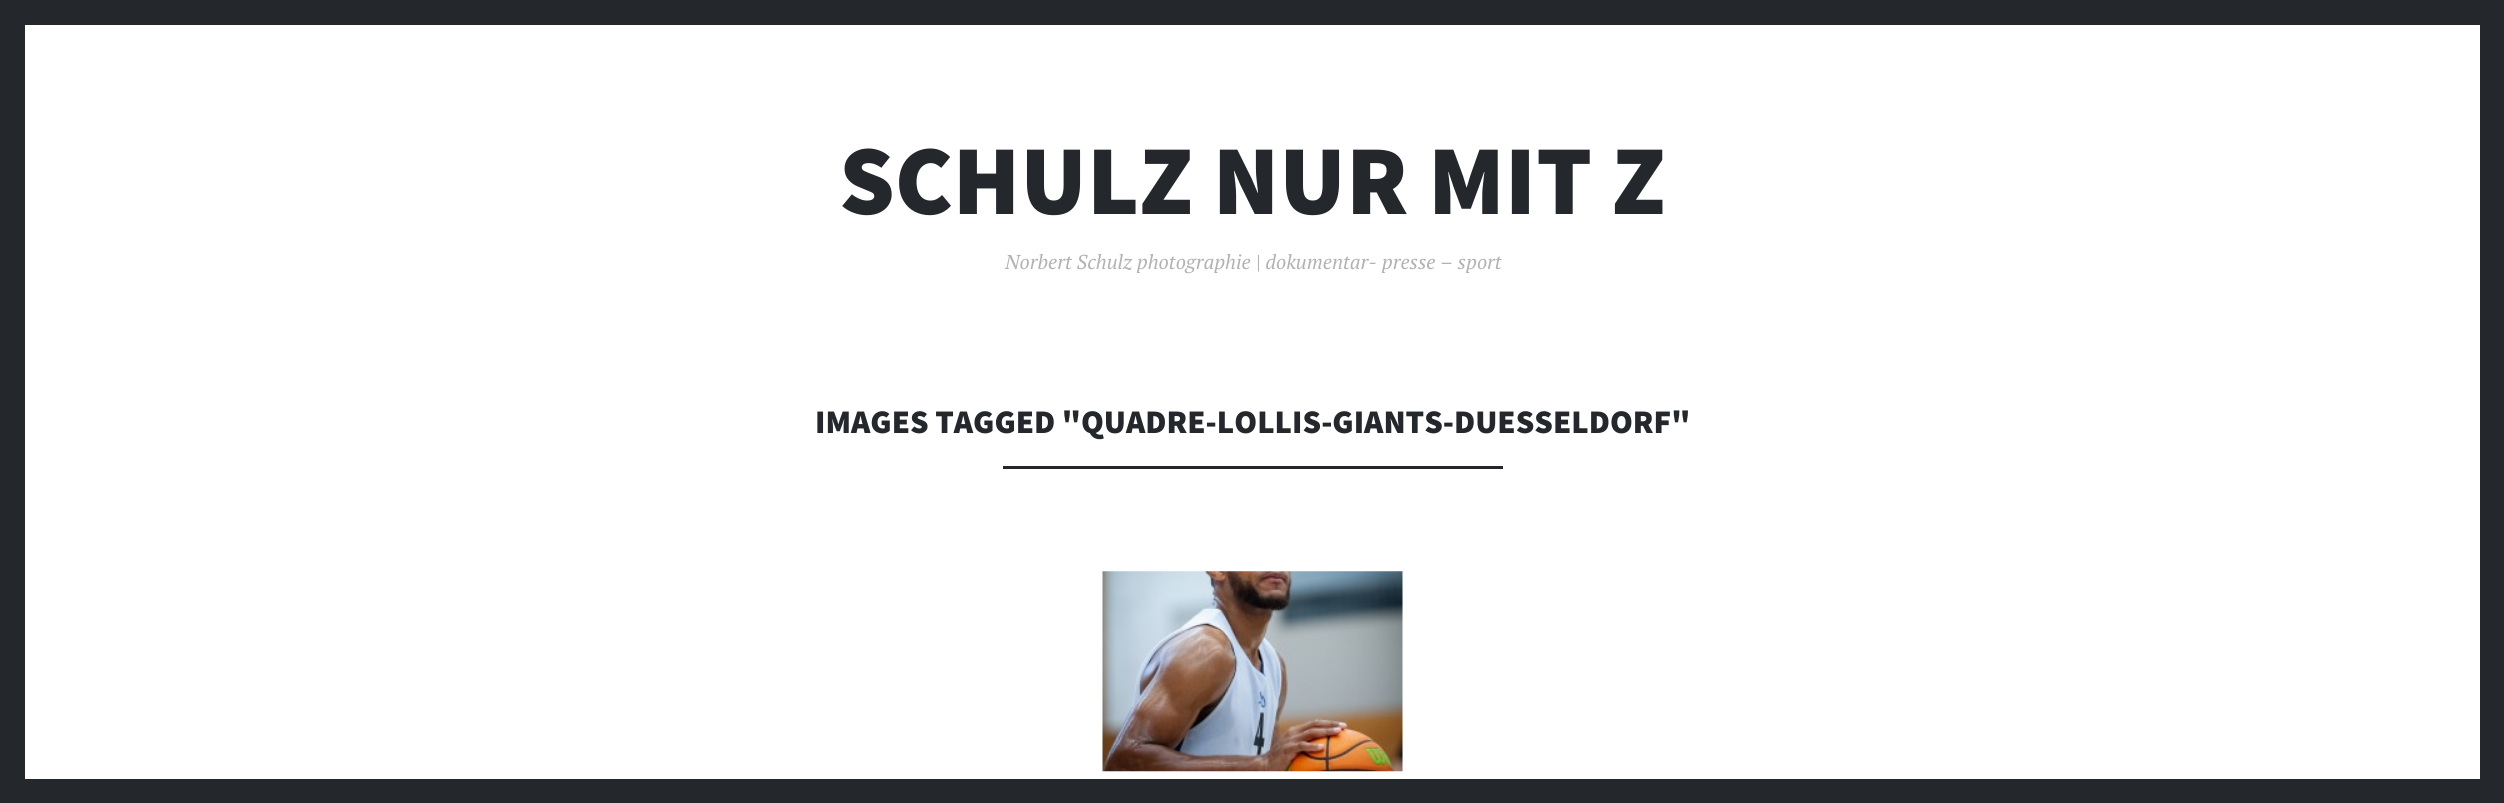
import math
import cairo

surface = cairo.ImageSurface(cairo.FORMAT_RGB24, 2504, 803)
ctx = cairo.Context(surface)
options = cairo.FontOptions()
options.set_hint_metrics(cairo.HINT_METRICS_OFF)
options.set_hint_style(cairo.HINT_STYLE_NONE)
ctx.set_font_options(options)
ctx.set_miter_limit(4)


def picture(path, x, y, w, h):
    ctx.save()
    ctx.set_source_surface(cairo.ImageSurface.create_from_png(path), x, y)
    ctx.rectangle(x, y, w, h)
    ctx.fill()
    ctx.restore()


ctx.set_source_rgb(0.141, 0.157, 0.176)
ctx.paint()
ctx.set_source_rgb(1, 1, 1)
ctx.rectangle(25, 25, 2455, 754)
ctx.fill()
ctx.select_font_face("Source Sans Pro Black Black")
ctx.set_font_size(99)
ctx.set_source_rgb(0.141, 0.157, 0.176)
ctx.move_to(839, 214)
ctx.show_text("SCHULZ NUR MIT Z")
ctx.select_font_face("PT Serif", cairo.FONT_SLANT_ITALIC)
ctx.set_font_size(20.1)
ctx.set_source_rgb(0.694, 0.698, 0.702)
ctx.move_to(1005, 269)
ctx.show_text("Norbert Schulz photographie | dokumentar- presse – sport")
ctx.select_font_face("Source Sans Pro Black Black")
ctx.set_font_size(33)
ctx.set_source_rgb(0.141, 0.157, 0.176)
ctx.move_to(815, 433)
ctx.show_text("IMAGES TAGGED \"QUADRE-LOLLIS-GIANTS-DUESSELDORF\"")
ctx.rectangle(1003, 466, 500, 3)
ctx.fill()
picture("img1.png", 1102, 571, 301, 201)
surface.write_to_png("page.png")
